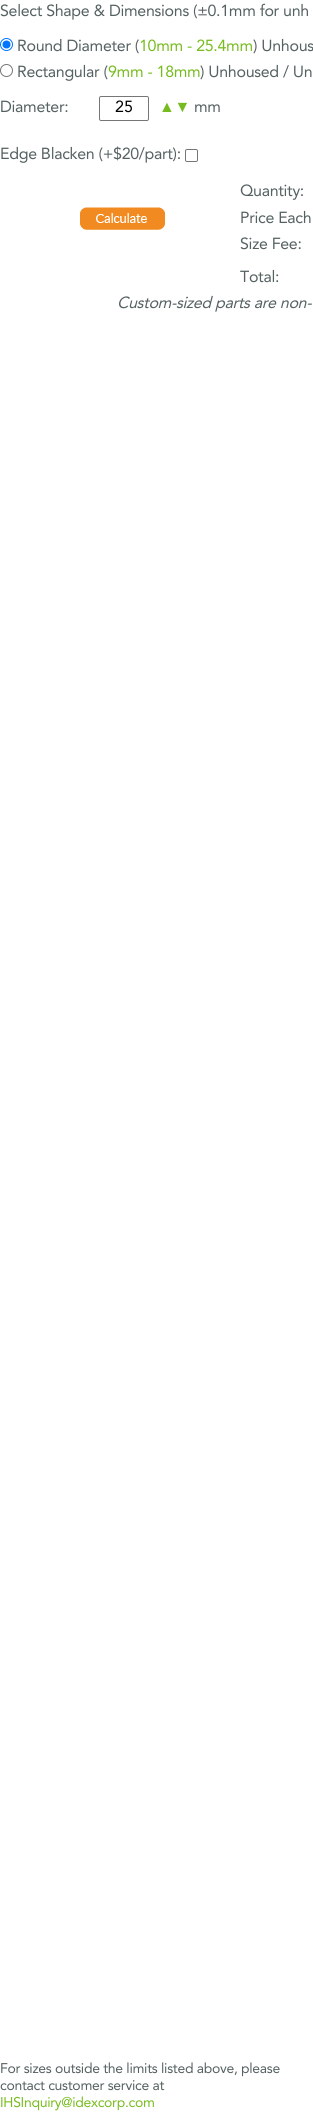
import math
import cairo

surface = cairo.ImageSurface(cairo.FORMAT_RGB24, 313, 2116)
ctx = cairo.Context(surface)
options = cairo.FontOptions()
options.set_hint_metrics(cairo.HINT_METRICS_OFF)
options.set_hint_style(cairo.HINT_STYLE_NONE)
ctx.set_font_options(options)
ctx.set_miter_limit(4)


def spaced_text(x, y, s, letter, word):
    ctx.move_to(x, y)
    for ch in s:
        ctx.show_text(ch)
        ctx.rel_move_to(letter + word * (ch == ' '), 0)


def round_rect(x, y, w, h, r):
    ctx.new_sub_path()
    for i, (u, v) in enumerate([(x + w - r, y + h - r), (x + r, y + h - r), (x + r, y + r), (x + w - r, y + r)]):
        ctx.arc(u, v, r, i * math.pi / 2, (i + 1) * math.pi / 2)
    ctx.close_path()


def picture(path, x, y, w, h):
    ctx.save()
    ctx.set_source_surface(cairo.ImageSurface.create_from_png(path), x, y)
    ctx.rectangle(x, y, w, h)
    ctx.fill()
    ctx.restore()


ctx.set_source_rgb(1, 1, 1)
ctx.paint()
ctx.select_font_face("Avenir")
ctx.set_font_size(16)
ctx.set_source_rgb(0.337, 0.38, 0.384)
spaced_text(0, 16, "Select Shape & Dimensions (±0.1mm for unh", -0.3, 0)
ctx.new_path()
ctx.arc(6.5, 44.5, 6, 0, 2 * math.pi)
ctx.set_source_rgb(0, 0.459, 1)
ctx.set_line_width(1)
ctx.stroke()
ctx.arc(6.5, 44.5, 4, 0, 2 * math.pi)
ctx.fill()
ctx.set_source_rgb(0.337, 0.38, 0.384)
spaced_text(17, 51, "Round Diameter (", -0.3, 0)
ctx.set_source_rgb(0.467, 0.737, 0.122)
spaced_text(139, 51, "10mm - 25.4mm", -0.3, 0)
ctx.set_source_rgb(0.337, 0.38, 0.384)
spaced_text(253, 51, ") Unhous", -0.3, 0)
ctx.new_path()
ctx.arc(6.5, 70.5, 6, 0, 2 * math.pi)
ctx.set_source_rgb(0.463, 0.463, 0.463)
ctx.stroke()
ctx.set_source_rgb(0.337, 0.38, 0.384)
spaced_text(17, 77, "Rectangular (", -0.3, 0)
ctx.set_source_rgb(0.467, 0.737, 0.122)
spaced_text(108, 77, "9mm - 18mm", -0.3, 0)
ctx.set_source_rgb(0.337, 0.38, 0.384)
spaced_text(200, 77, ") Unhoused / Un", -0.3, 0)
spaced_text(0, 112, "Diameter:", -0.3, 0)
round_rect(99.5, 96.5, 49, 24, 1.5)
ctx.set_source_rgb(0.463, 0.463, 0.463)
ctx.stroke()
ctx.set_source_rgb(0, 0, 0)
ctx.move_to(115, 112)
ctx.show_text("25")
ctx.select_font_face("Liberation Serif")
ctx.set_source_rgb(0.467, 0.737, 0.122)
spaced_text(159, 112, "▲▼", -0.3, 0)
ctx.select_font_face("Avenir")
ctx.set_source_rgb(0.337, 0.38, 0.384)
spaced_text(194, 112, "mm", -0.3, 0)
spaced_text(0, 159, "Edge Blacken (+$20/part):", -0.3, 0)
round_rect(185.5, 149.5, 12, 12, 1.5)
ctx.set_source_rgb(0.463, 0.463, 0.463)
ctx.stroke()
ctx.set_source_rgb(0.337, 0.38, 0.384)
spaced_text(240, 196, "Quantity:", -0.3, 0)
picture("img1.png", 80, 207, 85, 23)
spaced_text(240, 223, "Price Each", -0.3, 0)
spaced_text(240, 249, "Size Fee:", -0.3, 0)
spaced_text(240, 282, "Total:", -0.3, 0)
ctx.select_font_face("Avenir", cairo.FONT_SLANT_ITALIC)
spaced_text(117, 308, "Custom-sized parts are non-", -0.3, 0)
ctx.select_font_face("Avenir")
ctx.set_font_size(14)
spaced_text(0, 2073, "For sizes outside the limits listed above, please", -0.3, 0)
spaced_text(0, 2090, "contact customer service at", -0.3, 0)
ctx.set_source_rgb(0.467, 0.737, 0.122)
spaced_text(0, 2107, "IHSInquiry@idexcorp.com", -0.3, 0)
surface.write_to_png("page.png")
